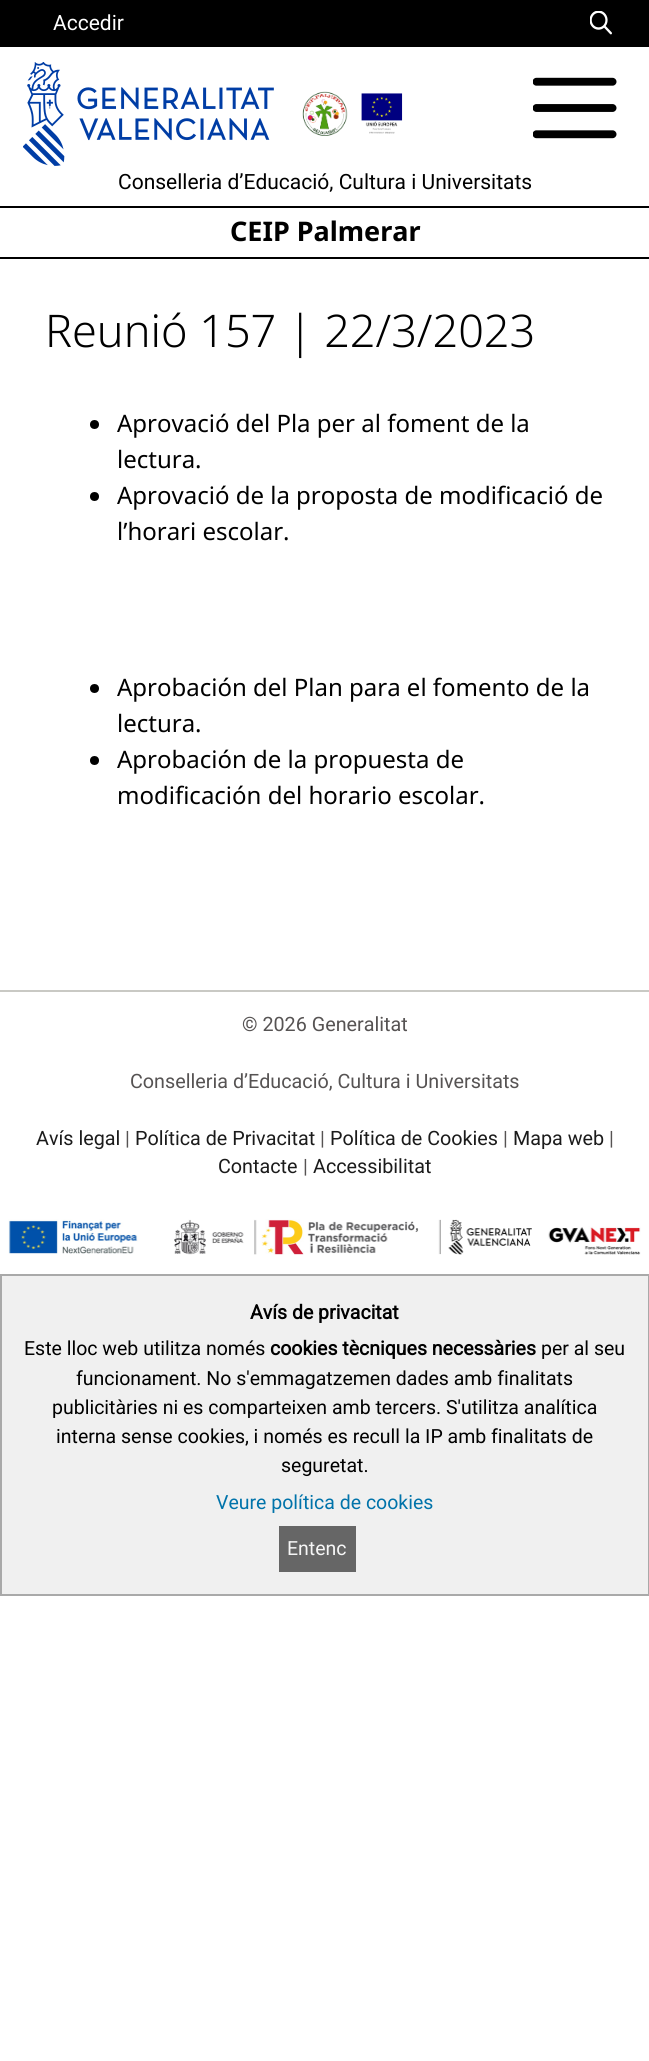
import math
import cairo

surface = cairo.ImageSurface(cairo.FORMAT_RGB24, 649, 2061)
ctx = cairo.Context(surface)
options = cairo.FontOptions()
options.set_hint_metrics(cairo.HINT_METRICS_OFF)
options.set_hint_style(cairo.HINT_STYLE_NONE)
ctx.set_font_options(options)
ctx.set_miter_limit(4)


def picture(path, x, y, w, h):
    ctx.save()
    ctx.set_source_surface(cairo.ImageSurface.create_from_png(path), x, y)
    ctx.rectangle(x, y, w, h)
    ctx.fill()
    ctx.restore()


ctx.set_source_rgb(1, 1, 1)
ctx.paint()
ctx.set_source_rgb(0, 0, 0)
ctx.rectangle(0, 257, 649, 2)
ctx.fill()
ctx.rectangle(0, 206, 649, 2)
ctx.fill()
ctx.rectangle(0, 0, 649, 47)
ctx.fill()
ctx.select_font_face("Roboto")
ctx.set_font_size(21)
ctx.set_source_rgb(1, 1, 1)
ctx.move_to(53, 30)
ctx.show_text("Accedir")
picture("img1.png", 590, 11, 22, 24)
picture("img2.png", 23, 62, 251, 104)
picture("img3.png", 302, 91, 101, 45)
ctx.set_source_rgb(0, 0, 0)
ctx.move_to(118, 189)
ctx.show_text("Conselleria d’Educació, Cultura i Universitats")
ctx.select_font_face("Noto Sans", cairo.FONT_SLANT_NORMAL, cairo.FONT_WEIGHT_BOLD)
ctx.set_font_size(27)
ctx.move_to(230, 241)
ctx.show_text("CEIP Palmerar")
picture("img4.png", 533, 77, 84, 62)
ctx.select_font_face("Noto Sans Light")
ctx.set_font_size(45)
ctx.move_to(45, 347)
ctx.show_text("Reunió 157 | 22/3/2023")
ctx.new_path()
ctx.arc(94.5, 424.5, 4.5, 0, 2 * math.pi)
ctx.fill()
ctx.select_font_face("Noto Sans")
ctx.set_font_size(24)
ctx.move_to(117, 432)
ctx.show_text("Aprovació del Pla per al foment de la")
ctx.move_to(117, 468)
ctx.show_text("lectura.")
ctx.new_path()
ctx.arc(94.5, 496.5, 4.5, 0, 2 * math.pi)
ctx.fill()
ctx.move_to(117, 504)
ctx.show_text("Aprovació de la proposta de modificació de")
ctx.move_to(117, 540)
ctx.show_text("l’horari escolar.")
ctx.new_path()
ctx.arc(94.5, 688.5, 4.5, 0, 2 * math.pi)
ctx.fill()
ctx.move_to(117, 696)
ctx.show_text("Aprobación del Plan para el fomento de la")
ctx.move_to(117, 732)
ctx.show_text("lectura.")
ctx.new_path()
ctx.arc(94.5, 760.5, 4.5, 0, 2 * math.pi)
ctx.fill()
ctx.move_to(117, 768)
ctx.show_text("Aprobación de la propuesta de")
ctx.move_to(117, 804)
ctx.show_text("modificación del horario escolar.")
ctx.set_source_rgb(0.788, 0.788, 0.769)
ctx.rectangle(0, 990, 649, 2)
ctx.fill()
ctx.select_font_face("Roboto")
ctx.set_font_size(19.75)
ctx.set_source_rgb(0.337, 0.325, 0.325)
ctx.move_to(242, 1031)
ctx.show_text("© 2026 Generalitat")
ctx.move_to(130, 1088)
ctx.show_text("Conselleria d’Educació, Cultura i Universitats")
ctx.set_source_rgb(0.106, 0.106, 0.106)
ctx.move_to(36, 1145)
ctx.show_text("Avís legal")
ctx.set_source_rgb(0.337, 0.325, 0.325)
ctx.move_to(125, 1145)
ctx.show_text("|")
ctx.set_source_rgb(0.106, 0.106, 0.106)
ctx.move_to(135, 1145)
ctx.show_text("Política de Privacitat")
ctx.set_source_rgb(0.337, 0.325, 0.325)
ctx.move_to(320, 1145)
ctx.show_text("|")
ctx.set_source_rgb(0.106, 0.106, 0.106)
ctx.move_to(330, 1145)
ctx.show_text("Política de Cookies")
ctx.set_source_rgb(0.337, 0.325, 0.325)
ctx.move_to(503, 1145)
ctx.show_text("|")
ctx.set_source_rgb(0.106, 0.106, 0.106)
ctx.move_to(513, 1145)
ctx.show_text("Mapa web")
ctx.set_source_rgb(0.337, 0.325, 0.325)
ctx.move_to(609, 1145)
ctx.show_text("|")
ctx.set_source_rgb(0.106, 0.106, 0.106)
ctx.move_to(218, 1173)
ctx.show_text("Contacte")
ctx.set_source_rgb(0.337, 0.325, 0.325)
ctx.move_to(303, 1173)
ctx.show_text("|")
ctx.set_source_rgb(0.106, 0.106, 0.106)
ctx.move_to(313, 1173)
ctx.show_text("Accessibilitat")
picture("img5.png", 8, 1219, 633, 36)
ctx.set_source_rgb(0.941, 0.941, 0.941)
ctx.rectangle(1, 1275, 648, 320)
ctx.fill_preserve()
ctx.set_source_rgb(0.663, 0.663, 0.663)
ctx.stroke()
ctx.select_font_face("Roboto", cairo.FONT_SLANT_NORMAL, cairo.FONT_WEIGHT_BOLD)
ctx.set_font_size(19.5)
ctx.set_source_rgb(0, 0, 0)
ctx.move_to(250, 1319)
ctx.show_text("Avís de privacitat")
ctx.select_font_face("Roboto")
ctx.move_to(24, 1355)
ctx.show_text("Este lloc web utilitza només")
ctx.select_font_face("Roboto", cairo.FONT_SLANT_NORMAL, cairo.FONT_WEIGHT_BOLD)
ctx.move_to(270, 1355)
ctx.show_text("cookies tècniques necessàries")
ctx.select_font_face("Roboto")
ctx.move_to(541, 1355)
ctx.show_text("per al seu")
ctx.move_to(76, 1385)
ctx.show_text("funcionament. No s'emmagatzemen dades amb finalitats")
ctx.move_to(52, 1414)
ctx.show_text("publicitàries ni es comparteixen amb tercers. S'utilitza analítica")
ctx.move_to(56, 1443)
ctx.show_text("interna sense cookies, i només es recull la IP amb finalitats de")
ctx.move_to(281, 1472)
ctx.show_text("seguretat.")
ctx.set_source_rgb(0, 0.451, 0.667)
ctx.move_to(216, 1509)
ctx.show_text("Veure política de cookies")
ctx.set_source_rgb(0.4, 0.4, 0.4)
ctx.rectangle(279, 1526, 77, 46)
ctx.fill()
ctx.set_source_rgb(0.961, 0.961, 0.961)
ctx.move_to(287, 1555)
ctx.show_text("Entenc")
surface.write_to_png("page.png")
